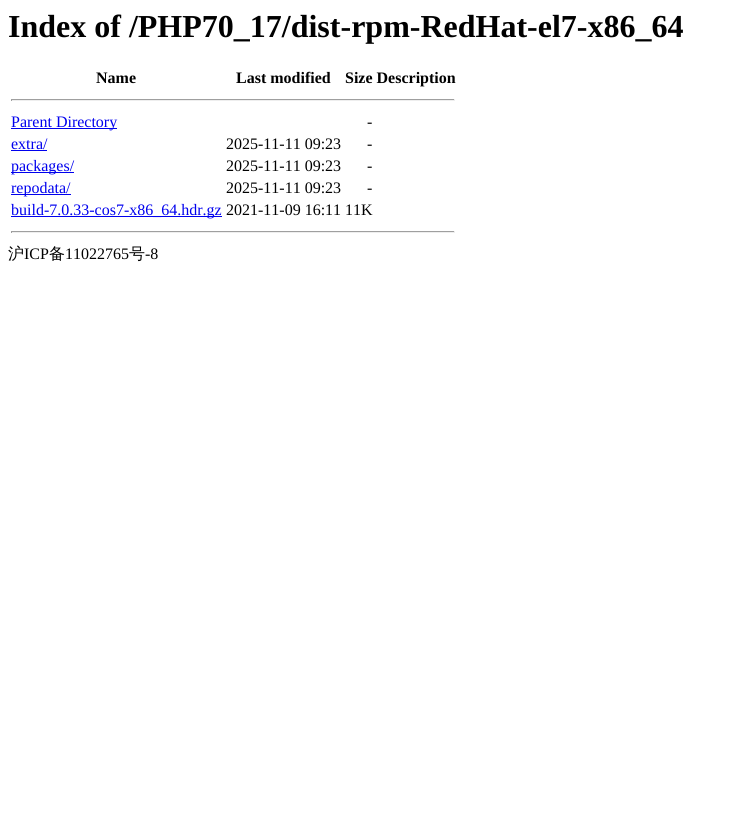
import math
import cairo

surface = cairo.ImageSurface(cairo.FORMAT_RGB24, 744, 825)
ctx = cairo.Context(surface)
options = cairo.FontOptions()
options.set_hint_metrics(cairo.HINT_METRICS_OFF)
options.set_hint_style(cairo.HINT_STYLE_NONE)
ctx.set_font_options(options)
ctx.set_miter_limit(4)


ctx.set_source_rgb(1, 1, 1)
ctx.paint()
ctx.select_font_face("Liberation Serif", cairo.FONT_SLANT_NORMAL, cairo.FONT_WEIGHT_BOLD)
ctx.set_font_size(32)
ctx.set_source_rgb(0, 0, 0)
ctx.move_to(8, 37)
ctx.show_text("Index of /PHP70_17/dist-rpm-RedHat-el7-x86_64")
ctx.set_font_size(16)
ctx.move_to(96, 83)
ctx.show_text("Name")
ctx.move_to(236, 83)
ctx.show_text("Last modified")
ctx.move_to(345, 83)
ctx.show_text("Size Description")
ctx.set_source_rgb(0.624, 0.624, 0.624)
ctx.rectangle(11, 99, 444, 1)
ctx.fill()
ctx.set_source_rgb(0.933, 0.933, 0.933)
ctx.rectangle(454, 99, 1, 2)
ctx.fill()
ctx.rectangle(11, 100, 444, 1)
ctx.fill()
ctx.set_source_rgb(0.624, 0.624, 0.624)
ctx.rectangle(11, 99, 1, 2)
ctx.fill()
ctx.set_source_rgb(0, 0, 0.933)
ctx.rectangle(11, 128, 106, 1)
ctx.fill()
ctx.select_font_face("Liberation Serif")
ctx.move_to(11, 127)
ctx.show_text("Parent Directory")
ctx.set_source_rgb(0, 0, 0)
ctx.move_to(367, 127)
ctx.show_text("-")
ctx.set_source_rgb(0, 0, 0.933)
ctx.move_to(11, 149)
ctx.show_text("extra/")
ctx.rectangle(11, 150, 36, 1)
ctx.fill()
ctx.set_source_rgb(0, 0, 0)
ctx.move_to(226, 149)
ctx.show_text("2025-11-11 09:23")
ctx.move_to(367, 149)
ctx.show_text("-")
ctx.set_source_rgb(0, 0, 0.933)
ctx.rectangle(11, 172, 63, 1)
ctx.fill()
ctx.move_to(11, 171)
ctx.show_text("packages/")
ctx.set_source_rgb(0, 0, 0)
ctx.move_to(226, 171)
ctx.show_text("2025-11-11 09:23")
ctx.move_to(367, 171)
ctx.show_text("-")
ctx.set_source_rgb(0, 0, 0.933)
ctx.rectangle(11, 194, 60, 1)
ctx.fill()
ctx.move_to(11, 193)
ctx.show_text("repodata/")
ctx.set_source_rgb(0, 0, 0)
ctx.move_to(226, 193)
ctx.show_text("2025-11-11 09:23")
ctx.move_to(367, 193)
ctx.show_text("-")
ctx.set_source_rgb(0, 0, 0.933)
ctx.rectangle(11, 216, 211, 1)
ctx.fill()
ctx.move_to(11, 215)
ctx.show_text("build-7.0.33-cos7-x86_64.hdr.gz")
ctx.set_source_rgb(0, 0, 0)
ctx.move_to(226, 215)
ctx.show_text("2021-11-09 16:11 11K")
ctx.set_source_rgb(0.624, 0.624, 0.624)
ctx.rectangle(11, 231, 444, 1)
ctx.fill()
ctx.set_source_rgb(0.933, 0.933, 0.933)
ctx.rectangle(454, 231, 1, 2)
ctx.fill()
ctx.rectangle(11, 232, 444, 1)
ctx.fill()
ctx.set_source_rgb(0.624, 0.624, 0.624)
ctx.rectangle(11, 231, 1, 2)
ctx.fill()
ctx.select_font_face("WenQuanYi Zen Hei Medium")
ctx.set_source_rgb(0, 0, 0)
ctx.move_to(8, 259)
ctx.show_text("沪")
ctx.select_font_face("Liberation Serif")
ctx.move_to(24, 259)
ctx.show_text("ICP")
ctx.select_font_face("WenQuanYi Zen Hei Medium")
ctx.move_to(49, 259)
ctx.show_text("备")
ctx.select_font_face("Liberation Serif")
ctx.move_to(65, 259)
ctx.show_text("11022765")
ctx.select_font_face("WenQuanYi Zen Hei Medium")
ctx.move_to(129, 259)
ctx.show_text("号")
ctx.select_font_face("Liberation Serif")
ctx.move_to(145, 259)
ctx.show_text("-8")
surface.write_to_png("page.png")
